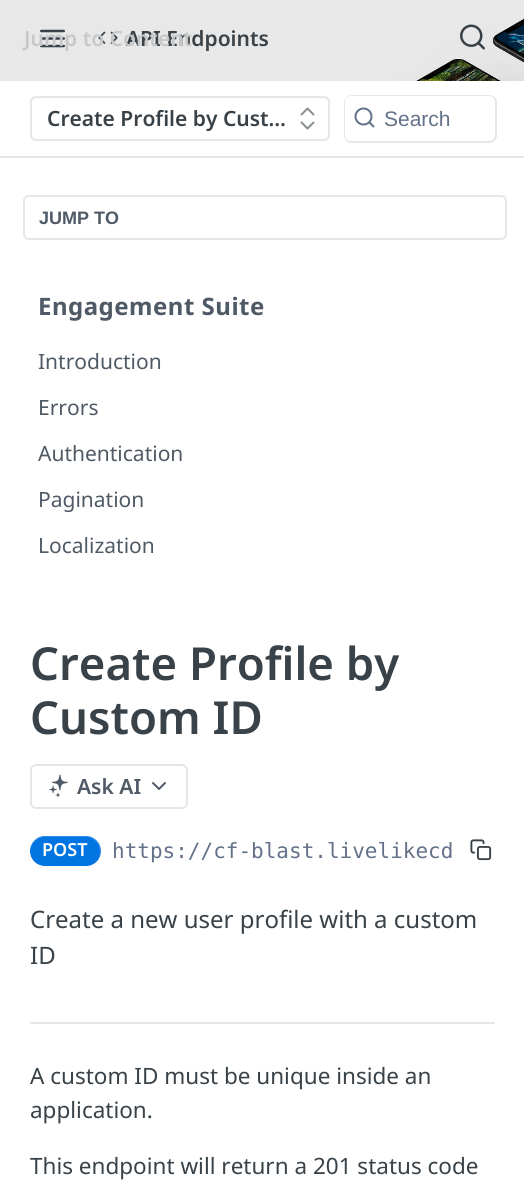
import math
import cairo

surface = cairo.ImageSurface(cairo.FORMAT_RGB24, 524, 1184)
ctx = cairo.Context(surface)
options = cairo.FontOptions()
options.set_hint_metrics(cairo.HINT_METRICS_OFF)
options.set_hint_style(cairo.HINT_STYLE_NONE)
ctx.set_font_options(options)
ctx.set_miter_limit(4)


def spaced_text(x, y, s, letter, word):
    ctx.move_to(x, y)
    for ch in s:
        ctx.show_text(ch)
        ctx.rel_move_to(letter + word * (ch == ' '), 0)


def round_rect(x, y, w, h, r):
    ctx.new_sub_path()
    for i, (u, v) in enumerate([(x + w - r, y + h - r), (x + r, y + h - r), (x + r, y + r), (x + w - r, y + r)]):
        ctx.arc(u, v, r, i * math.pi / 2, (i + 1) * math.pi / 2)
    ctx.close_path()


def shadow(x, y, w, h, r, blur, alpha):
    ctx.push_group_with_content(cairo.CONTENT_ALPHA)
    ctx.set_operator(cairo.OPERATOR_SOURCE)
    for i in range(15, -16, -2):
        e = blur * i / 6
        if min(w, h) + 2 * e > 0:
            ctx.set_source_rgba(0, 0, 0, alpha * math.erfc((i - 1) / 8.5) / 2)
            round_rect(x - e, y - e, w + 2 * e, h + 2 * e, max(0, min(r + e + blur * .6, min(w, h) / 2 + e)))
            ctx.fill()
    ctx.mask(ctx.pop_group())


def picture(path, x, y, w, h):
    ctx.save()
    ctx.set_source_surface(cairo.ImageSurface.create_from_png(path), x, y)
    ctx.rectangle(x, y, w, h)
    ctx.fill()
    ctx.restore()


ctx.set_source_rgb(1, 1, 1)
ctx.paint()
ctx.set_source_rgb(0.902, 0.902, 0.902)
ctx.rectangle(0, 156, 524, 2)
ctx.fill()
picture("img1.png", 0, 0, 524, 81)
picture("img2.png", 40, 29, 25, 19)
picture("img3.png", 98, 31, 20, 13)
ctx.select_font_face("Noto Sans SemiBold")
ctx.set_font_size(21)
ctx.set_source_rgb(0.22, 0.259, 0.282)
ctx.move_to(126, 46)
ctx.show_text("API Endpoints")
ctx.set_source_rgb(0.776, 0.784, 0.788)
ctx.move_to(24, 46)
ctx.show_text("Jump to Content")
picture("img4.png", 460, 24, 25, 26)
round_rect(31, 97, 298, 43, 5)
ctx.set_source_rgb(0.902, 0.902, 0.902)
ctx.stroke()
ctx.set_source_rgb(0.22, 0.259, 0.282)
ctx.move_to(47, 126)
ctx.show_text("Create Profile by Cust…")
ctx.new_path()
ctx.move_to(301.5, 122.5)
ctx.line_to(307.5, 128.5)
ctx.line_to(313.5, 122.5)
ctx.move_to(313.5, 114.5)
ctx.line_to(307.5, 108.5)
ctx.line_to(301.5, 114.5)
ctx.set_source_rgb(0.533, 0.557, 0.569)
ctx.set_line_cap(cairo.LINE_CAP_ROUND)
ctx.set_line_join(cairo.LINE_JOIN_ROUND)
ctx.stroke()
round_rect(345, 96, 151, 46, 7)
ctx.set_source_rgb(0.902, 0.902, 0.902)
ctx.set_line_cap(cairo.LINE_CAP_BUTT)
ctx.set_line_join(cairo.LINE_JOIN_MITER)
ctx.stroke()
ctx.set_source_rgb(1, 1, 1)
round_rect(345, 96, 150, 45, 6)
ctx.fill()
picture("img5.png", 354, 107, 21, 21)
ctx.select_font_face("Liberation Sans")
ctx.set_source_rgb(0.388, 0.447, 0.533)
ctx.move_to(384, 126)
ctx.show_text("Search")
round_rect(24, 196, 482, 43, 5)
ctx.set_source_rgb(0.902, 0.902, 0.902)
ctx.stroke()
ctx.select_font_face("Liberation Sans", cairo.FONT_SLANT_NORMAL, cairo.FONT_WEIGHT_BOLD)
ctx.set_font_size(18)
ctx.set_source_rgb(0.31, 0.353, 0.4)
ctx.move_to(39, 224)
ctx.show_text("JUMP TO")
ctx.select_font_face("Noto Sans", cairo.FONT_SLANT_NORMAL, cairo.FONT_WEIGHT_BOLD)
ctx.set_font_size(24)
spaced_text(38, 315, "Engagement Suite", 0.5, 0)
ctx.select_font_face("Noto Sans")
ctx.set_font_size(21)
ctx.move_to(38, 369)
ctx.show_text("Introduction")
ctx.move_to(38, 415)
ctx.show_text("Errors")
ctx.move_to(38, 461)
ctx.show_text("Authentication")
ctx.move_to(38, 507)
ctx.show_text("Pagination")
ctx.move_to(38, 553)
ctx.show_text("Localization")
ctx.set_source_rgb(0.902, 0.902, 0.902)
ctx.rectangle(30, 1022, 465, 2)
ctx.fill()
ctx.select_font_face("Noto Sans SemiBold")
ctx.set_font_size(45.5)
ctx.set_source_rgb(0.22, 0.259, 0.282)
ctx.move_to(30, 680)
ctx.show_text("Create Profile by")
ctx.move_to(30, 734)
ctx.show_text("Custom ID")
round_rect(31, 765, 156, 43, 5)
ctx.set_source_rgb(0.902, 0.902, 0.902)
ctx.stroke()
picture("img6.png", 49, 774, 19, 24)
ctx.set_font_size(21)
ctx.set_source_rgb(0.31, 0.353, 0.4)
ctx.move_to(77, 794)
ctx.show_text("Ask AI")
ctx.new_path()
ctx.move_to(153, 783)
ctx.line_to(159, 789)
ctx.line_to(165, 783)
ctx.set_line_cap(cairo.LINE_CAP_ROUND)
ctx.set_line_join(cairo.LINE_JOIN_ROUND)
ctx.stroke()
ctx.set_source_rgb(0, 0, 0)
shadow(30, 837, 71, 30, 15, 1.5, 0.05)
ctx.set_source_rgb(0, 0.455, 0.882)
round_rect(30, 836, 71, 30, 15)
ctx.fill()
ctx.set_source_rgba(1, 1, 1, 0.2)
ctx.new_path()
ctx.move_to(45, 837)
ctx.line_to(86, 837)
ctx.curve_to(94, 837, 100, 844, 100, 852)
ctx.curve_to(100, 855, 99, 858, 97, 861)
ctx.curve_to(100, 857, 102, 853, 101, 848)
ctx.curve_to(98, 836, 89, 836, 79, 836)
ctx.line_to(66, 836)
ctx.curve_to(53, 836, 29, 832, 30, 852)
ctx.curve_to(30, 844, 37, 837, 45, 837)
ctx.close_path()
ctx.fill()
ctx.set_font_size(18)
ctx.set_source_rgb(1, 1, 1)
ctx.move_to(42, 856)
ctx.show_text("POST")
ctx.select_font_face("DejaVu Sans Mono")
ctx.set_font_size(21)
ctx.set_source_rgb(0.388, 0.447, 0.533)
ctx.move_to(112, 858)
ctx.show_text("https://cf-blast.livelikecd")
picture("img7.png", 470, 839, 22, 22)
ctx.select_font_face("Noto Sans")
ctx.set_font_size(24)
ctx.set_source_rgb(0.22, 0.259, 0.282)
ctx.move_to(30, 928)
ctx.show_text("Create a new user profile with a custom")
ctx.move_to(30, 964)
ctx.show_text("ID")
ctx.set_font_size(22.5)
ctx.move_to(30, 1084)
ctx.show_text("A custom ID must be unique inside an")
ctx.move_to(30, 1118)
ctx.show_text("application.")
ctx.move_to(30, 1174)
ctx.show_text("This endpoint will return a 201 status code")
surface.write_to_png("page.png")
